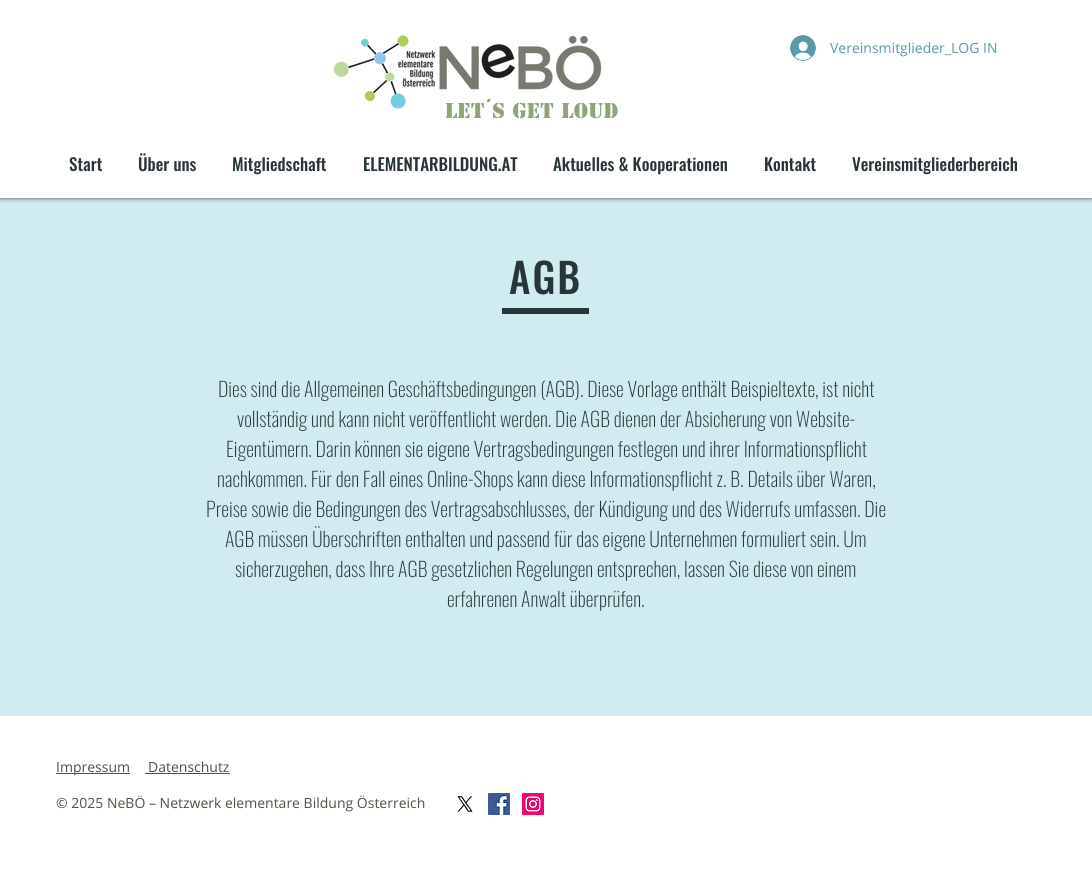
import math
import cairo

surface = cairo.ImageSurface(cairo.FORMAT_RGB24, 1092, 881)
ctx = cairo.Context(surface)
options = cairo.FontOptions()
options.set_hint_metrics(cairo.HINT_METRICS_OFF)
options.set_hint_style(cairo.HINT_STYLE_NONE)
ctx.set_font_options(options)
ctx.set_miter_limit(4)


def spaced_text(x, y, s, letter, word):
    ctx.move_to(x, y)
    for ch in s:
        ctx.show_text(ch)
        ctx.rel_move_to(letter + word * (ch == ' '), 0)


def round_rect(x, y, w, h, r):
    ctx.new_sub_path()
    for i, (u, v) in enumerate([(x + w - r, y + h - r), (x + r, y + h - r), (x + r, y + r), (x + w - r, y + r)]):
        ctx.arc(u, v, r, i * math.pi / 2, (i + 1) * math.pi / 2)
    ctx.close_path()


def shadow(x, y, w, h, r, blur, alpha):
    ctx.push_group_with_content(cairo.CONTENT_ALPHA)
    ctx.set_operator(cairo.OPERATOR_SOURCE)
    for i in range(15, -16, -2):
        e = blur * i / 6
        if min(w, h) + 2 * e > 0:
            ctx.set_source_rgba(0, 0, 0, alpha * math.erfc((i - 1) / 8.5) / 2)
            round_rect(x - e, y - e, w + 2 * e, h + 2 * e, max(0, min(r + e + blur * .6, min(w, h) / 2 + e)))
            ctx.fill()
    ctx.mask(ctx.pop_group())


def picture(path, x, y, w, h):
    ctx.save()
    ctx.set_source_surface(cairo.ImageSurface.create_from_png(path), x, y)
    ctx.rectangle(x, y, w, h)
    ctx.fill()
    ctx.restore()


ctx.set_source_rgb(0.816, 0.922, 0.945)
ctx.paint()
ctx.set_source_rgb(0, 0, 0)
shadow(0, 0, 1092, 198, 0, 2.5, 0.7)
ctx.set_source_rgb(1, 1, 1)
ctx.rectangle(0, 0, 1092, 198)
ctx.fill()
picture("img1.png", 333, 35, 269, 74)
picture("img2.png", 790, 35, 26, 26)
ctx.select_font_face("Open Sans")
ctx.set_font_size(14)
ctx.set_source_rgb(0.361, 0.596, 0.655)
ctx.move_to(830, 53)
ctx.show_text("Vereinsmitglieder_LOG IN")
ctx.select_font_face("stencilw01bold", cairo.FONT_SLANT_NORMAL, cairo.FONT_WEIGHT_BOLD)
ctx.set_font_size(20)
ctx.set_source_rgb(0.561, 0.643, 0.475)
spaced_text(445, 118, "LEt´s get loud", 0.4, 0)
ctx.select_font_face("Oswald Medium")
ctx.set_font_size(17)
ctx.set_source_rgb(0.161, 0.212, 0.224)
ctx.move_to(69, 171)
ctx.show_text("Start")
ctx.move_to(138, 171)
ctx.show_text("Über uns")
ctx.move_to(232, 171)
ctx.show_text("Mitgliedschaft")
ctx.move_to(363, 171)
ctx.show_text("ELEMENTARBILDUNG.AT")
ctx.move_to(553, 171)
ctx.show_text("Aktuelles & Kooperationen")
ctx.move_to(764, 171)
ctx.show_text("Kontakt")
ctx.move_to(852, 171)
ctx.show_text("Vereinsmitgliederbereich")
ctx.set_font_size(41)
spaced_text(509, 294, "AGB", 2, 0)
ctx.rectangle(502, 308, 87, 6)
ctx.fill()
ctx.select_font_face("Oswald ExtraLight")
ctx.set_font_size(20)
ctx.move_to(218, 397)
ctx.show_text("Dies sind die Allgemeinen Geschäftsbedingungen (AGB). Diese Vorlage enthält Beispieltexte, ist nicht")
ctx.move_to(237, 427)
ctx.show_text("vollständig und kann nicht veröffentlicht werden. Die AGB dienen der Absicherung von Website-")
ctx.move_to(226, 457)
ctx.show_text("Eigentümern. Darin können sie eigene Vertragsbedingungen festlegen und ihrer Informationspflicht")
ctx.move_to(217, 487)
ctx.show_text("nachkommen. Für den Fall eines Online-Shops kann diese Informationspflicht z. B. Details über Waren,")
ctx.move_to(206, 517)
ctx.show_text("Preise sowie die Bedingungen des Vertragsabschlusses, der Kündigung und des Widerrufs umfassen. Die")
ctx.move_to(225, 547)
ctx.show_text("AGB müssen Überschriften enthalten und passend für das eigene Unternehmen formuliert sein. Um")
ctx.move_to(235, 577)
ctx.show_text("sicherzugehen, dass Ihre AGB gesetzlichen Regelungen entsprechen, lassen Sie diese von einem")
ctx.move_to(447, 607)
ctx.show_text("erfahrenen Anwalt überprüfen.")
ctx.set_source_rgb(1, 1, 0.996)
ctx.rectangle(0, 716, 1092, 165)
ctx.fill()
ctx.set_source_rgb(0.318, 0.314, 0.294)
ctx.rectangle(56, 773, 74, 1)
ctx.fill()
ctx.select_font_face("Open Sans")
ctx.set_font_size(14)
ctx.move_to(56, 772)
ctx.show_text("Impressum")
ctx.move_to(148, 772)
ctx.show_text("Datenschutz")
ctx.rectangle(145, 773, 85, 1)
ctx.fill()
ctx.move_to(56, 808)
ctx.show_text("© 2025 NeBÖ – Netzwerk elementare Bildung Österreich")
picture("img3.png", 457, 796, 16, 16)
picture("img4.png", 488, 793, 22, 22)
picture("img5.png", 522, 793, 22, 22)
surface.write_to_png("page.png")
